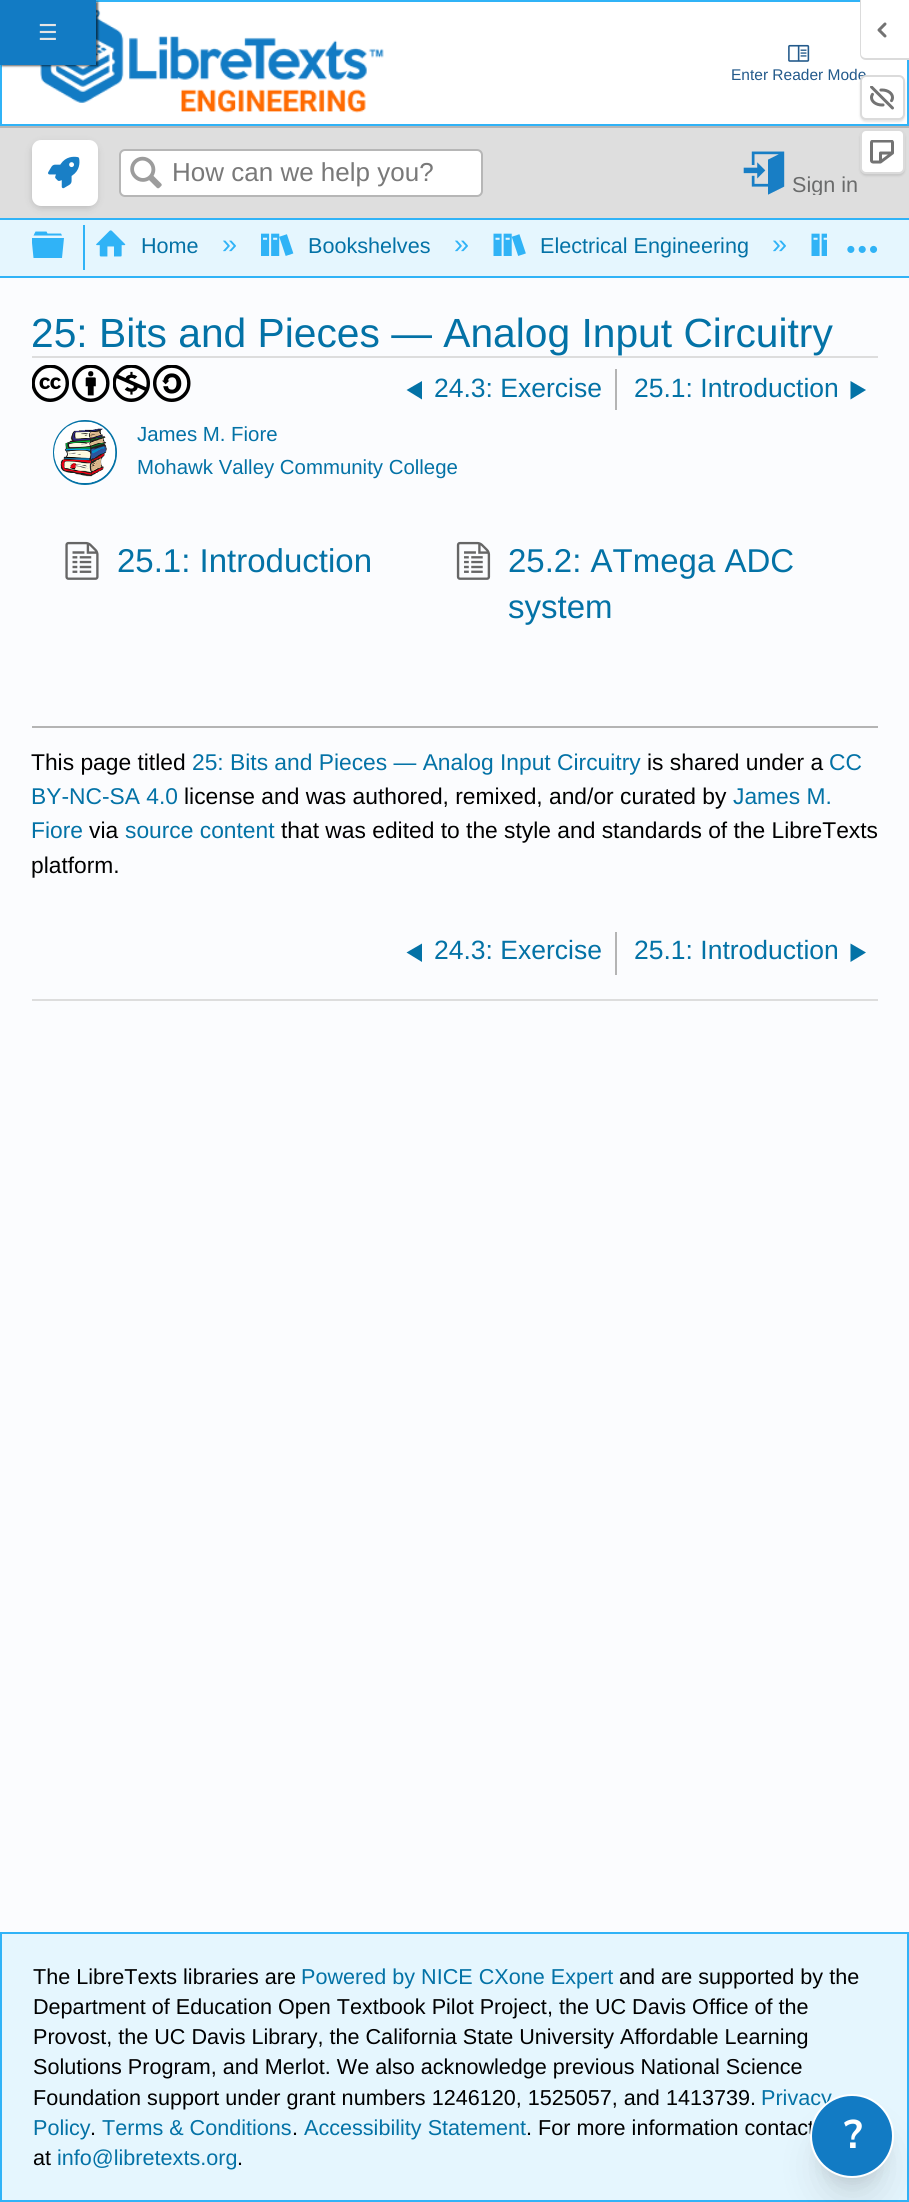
import math
import cairo

surface = cairo.ImageSurface(cairo.FORMAT_RGB24, 909, 2202)
ctx = cairo.Context(surface)
options = cairo.FontOptions()
options.set_hint_metrics(cairo.HINT_METRICS_OFF)
options.set_hint_style(cairo.HINT_STYLE_NONE)
ctx.set_font_options(options)
ctx.set_miter_limit(4)


def spaced_text(x, y, s, letter, word):
    ctx.move_to(x, y)
    for ch in s:
        ctx.show_text(ch)
        ctx.rel_move_to(letter + word * (ch == ' '), 0)


def round_rect(x, y, w, h, r):
    ctx.new_sub_path()
    for i, (u, v) in enumerate([(x + w - r, y + h - r), (x + r, y + h - r), (x + r, y + r), (x + w - r, y + r)]):
        ctx.arc(u, v, r, i * math.pi / 2, (i + 1) * math.pi / 2)
    ctx.close_path()


def shadow(x, y, w, h, r, blur, alpha):
    ctx.push_group_with_content(cairo.CONTENT_ALPHA)
    ctx.set_operator(cairo.OPERATOR_SOURCE)
    for i in range(15, -16, -2):
        e = blur * i / 6
        if min(w, h) + 2 * e > 0:
            ctx.set_source_rgba(0, 0, 0, alpha * math.erfc((i - 1) / 8.5) / 2)
            round_rect(x - e, y - e, w + 2 * e, h + 2 * e, max(0, min(r + e + blur * .6, min(w, h) / 2 + e)))
            ctx.fill()
    ctx.mask(ctx.pop_group())


def picture(path, x, y, w, h):
    ctx.save()
    ctx.set_source_surface(cairo.ImageSurface.create_from_png(path), x, y)
    ctx.rectangle(x, y, w, h)
    ctx.fill()
    ctx.restore()


ctx.set_source_rgb(0.984, 0.988, 0.996)
ctx.paint()
ctx.set_source_rgb(1, 1, 1)
ctx.rectangle(1, 1, 907, 124)
ctx.fill_preserve()
ctx.set_source_rgb(0.188, 0.702, 0.965)
ctx.stroke()
picture("img4.png", 40, 9, 344, 104)
ctx.set_source_rgb(0, 0, 0)
shadow(2, 2, 96, 64, 0, 1, 0.6)
ctx.set_source_rgb(0.071, 0.482, 0.769)
ctx.rectangle(0, 0, 96, 65)
ctx.fill()
ctx.select_font_face("DejaVu Sans")
ctx.set_font_size(22)
ctx.set_source_rgb(0.898, 0.898, 0.898)
spaced_text(38, 40, "☰", 1, 0)
ctx.set_source_rgb(1, 1, 1)
ctx.new_path()
ctx.move_to(861, 0)
ctx.line_to(909, 0)
ctx.line_to(909, 59)
ctx.line_to(866, 59)
ctx.curve_to(863, 59, 861, 57, 861, 54)
ctx.close_path()
ctx.fill()
ctx.set_source_rgb(0.859, 0.859, 0.859)
ctx.set_fill_rule(cairo.FILL_RULE_EVEN_ODD)
ctx.new_path()
ctx.move_to(860, 0)
ctx.line_to(909, 0)
ctx.line_to(909, 60)
ctx.line_to(866, 60)
ctx.curve_to(862, 60, 860, 57, 860, 54)
ctx.close_path()
ctx.move_to(861, 0)
ctx.line_to(909, 0)
ctx.line_to(909, 58)
ctx.line_to(866, 58)
ctx.curve_to(863, 58, 861, 56, 861, 54)
ctx.close_path()
ctx.fill()
picture("img1.png", 877, 22, 10, 16)
ctx.set_source_rgb(0, 0, 0)
shadow(860, 77, 45, 45, 6, 1, 0.1)
ctx.select_font_face("Liberation Sans")
ctx.set_font_size(15.5)
ctx.set_source_rgb(0.137, 0.353, 0.545)
ctx.move_to(731, 80)
ctx.show_text("Enter Reader Mode")
ctx.set_source_rgb(1, 1, 1)
round_rect(861, 76, 43, 43, 5)
ctx.fill_preserve()
ctx.set_source_rgb(0.859, 0.859, 0.859)
ctx.stroke()
picture("img2.png", 870, 86, 24, 24)
ctx.set_source_rgb(0.871, 0.871, 0.871)
ctx.rectangle(0, 128, 909, 90)
ctx.fill()
ctx.set_source_rgb(0.714, 0.714, 0.714)
ctx.rectangle(0, 126, 909, 2)
ctx.fill()
ctx.set_source_rgb(0, 0, 0)
shadow(860, 131, 45, 45, 6, 1, 0.1)
ctx.set_source_rgb(1, 1, 1)
round_rect(861, 130, 43, 43, 5)
ctx.fill_preserve()
ctx.set_source_rgb(0.859, 0.859, 0.859)
ctx.stroke()
picture("img3.png", 870, 140, 24, 24)
picture("img5.png", 788, 44, 22, 18)
ctx.set_source_rgb(0.188, 0.702, 0.965)
ctx.rectangle(0, 218, 909, 2)
ctx.fill()
ctx.set_source_rgb(0.031, 0.031, 0.031)
shadow(33, 144, 63, 63, 8, 4, 0.2)
ctx.set_source_rgb(1, 1, 1)
round_rect(32, 140, 66, 66, 9)
ctx.fill()
picture("img6.png", 48, 156, 32, 33)
round_rect(120, 150, 362, 46, 5)
ctx.fill_preserve()
ctx.set_source_rgb(0.714, 0.714, 0.714)
ctx.stroke()
picture("img7.png", 130, 156, 32, 33)
ctx.set_font_size(26)
ctx.set_source_rgb(0.475, 0.475, 0.475)
ctx.move_to(172, 181)
ctx.show_text("How can we help you?")
picture("img8.png", 743, 151, 42, 44)
ctx.save()
ctx.set_fill_rule(cairo.FILL_RULE_WINDING)
ctx.rectangle(741, 150, 126, 45)
ctx.clip()
ctx.set_font_size(21.6)
ctx.set_source_rgb(0.416, 0.42, 0.42)
ctx.move_to(792, 192)
ctx.show_text("Sign in")
ctx.restore()
ctx.set_source_rgb(0.898, 0.961, 0.996)
ctx.rectangle(0, 220, 909, 56)
ctx.fill()
ctx.set_source_rgb(0.188, 0.702, 0.965)
ctx.rectangle(0, 276, 909, 2)
ctx.fill()
ctx.new_path()
ctx.move_to(32, 243)
ctx.line_to(32, 238)
ctx.line_to(64, 238)
ctx.line_to(62, 258)
ctx.line_to(33.5, 258)
ctx.close_path()
ctx.move_to(61, 233.5)
ctx.line_to(47.5, 233.5)
ctx.line_to(46.5, 231.5)
ctx.line_to(35.5, 231.5)
ctx.line_to(33.5, 235.5)
ctx.line_to(62, 235.5)
ctx.close_path()
ctx.fill()
ctx.rectangle(83, 225, 2, 45)
ctx.fill()
picture("img9.png", 96, 230, 30, 27)
ctx.set_font_size(21.6)
ctx.set_source_rgb(0.012, 0.447, 0.651)
ctx.move_to(141, 253)
ctx.show_text("Home")
ctx.set_font_size(27)
ctx.set_source_rgb(0.188, 0.702, 0.965)
ctx.move_to(222, 253)
ctx.show_text("»")
picture("img10.png", 261, 233, 33, 23)
ctx.set_font_size(21.6)
ctx.set_source_rgb(0.012, 0.447, 0.651)
ctx.move_to(308, 253)
ctx.show_text("Bookshelves")
ctx.set_font_size(27)
ctx.set_source_rgb(0.188, 0.702, 0.965)
ctx.move_to(454, 253)
ctx.show_text("»")
picture("img11.png", 493, 233, 33, 23)
ctx.set_font_size(21.6)
ctx.set_source_rgb(0.012, 0.447, 0.651)
ctx.move_to(540, 253)
ctx.show_text("Electrical Engineering")
ctx.set_font_size(27)
ctx.set_source_rgb(0.188, 0.702, 0.965)
ctx.move_to(772, 253)
ctx.show_text("»")
picture("img12.png", 811, 233, 16, 23)
picture("img13.png", 847, 245, 31, 8)
ctx.set_source_rgb(0.867, 0.867, 0.867)
ctx.rectangle(32, 356, 846, 2)
ctx.fill()
ctx.set_font_size(40.75)
ctx.set_source_rgb(0.012, 0.447, 0.651)
ctx.move_to(31, 347)
ctx.show_text("25: Bits and Pieces — Analog Input Circuitry")
picture("img14.png", 32, 365, 37, 37)
picture("img15.png", 72, 365, 38, 37)
picture("img16.png", 113, 365, 37, 37)
picture("img17.png", 153, 365, 38, 37)
ctx.set_source_rgb(0.706, 0.706, 0.706)
ctx.rectangle(615, 369, 2, 41)
ctx.fill()
ctx.set_source_rgb(0.012, 0.447, 0.651)
ctx.set_fill_rule(cairo.FILL_RULE_WINDING)
ctx.new_path()
ctx.move_to(422, 381)
ctx.line_to(422, 399.5)
ctx.line_to(406.5, 390)
ctx.close_path()
ctx.fill()
ctx.set_font_size(26.5)
ctx.move_to(434, 397)
ctx.show_text("24.3: Exercise")
ctx.move_to(634, 397)
ctx.show_text("25.1: Introduction")
ctx.new_path()
ctx.move_to(850.5, 381)
ctx.line_to(850.5, 399.5)
ctx.line_to(866, 390)
ctx.close_path()
ctx.fill()
round_rect(54, 421, 62, 63, 31)
ctx.stroke()
picture("img18.png", 54, 421, 62, 62)
ctx.set_font_size(20.4)
ctx.move_to(137, 441)
ctx.show_text("James M. Fiore")
ctx.move_to(137, 474)
ctx.show_text("Mohawk Valley Community College")
picture("img19.png", 65, 541, 34, 39)
ctx.set_font_size(33)
ctx.move_to(117, 572)
ctx.show_text("25.1: Introduction")
picture("img20.png", 456, 541, 35, 39)
ctx.move_to(508, 572)
ctx.show_text("25.2: ATmega ADC")
ctx.move_to(508, 618)
ctx.show_text("system")
ctx.set_source_rgb(0.706, 0.706, 0.706)
ctx.rectangle(32, 726, 846, 2)
ctx.fill()
ctx.set_font_size(22.8)
ctx.set_source_rgb(0, 0, 0)
ctx.move_to(31, 770)
ctx.show_text("This page titled")
ctx.set_source_rgb(0.012, 0.447, 0.651)
ctx.move_to(192, 770)
ctx.show_text("25: Bits and Pieces — Analog Input Circuitry")
ctx.set_source_rgb(0, 0, 0)
ctx.move_to(647, 770)
ctx.show_text("is shared under a")
ctx.set_source_rgb(0.012, 0.447, 0.651)
ctx.move_to(829, 770)
ctx.show_text("CC")
ctx.move_to(31, 804)
ctx.show_text("BY-NC-SA 4.0")
ctx.set_source_rgb(0, 0, 0)
ctx.move_to(184, 804)
ctx.show_text("license and was authored, remixed, and/or curated by")
ctx.set_source_rgb(0.012, 0.447, 0.651)
ctx.move_to(733, 804)
ctx.show_text("James M.")
ctx.move_to(31, 838)
ctx.show_text("Fiore")
ctx.set_source_rgb(0, 0, 0)
ctx.move_to(89, 838)
ctx.show_text("via")
ctx.set_source_rgb(0.012, 0.447, 0.651)
ctx.move_to(125, 838)
ctx.show_text("source content")
ctx.set_source_rgb(0, 0, 0)
ctx.move_to(281, 838)
ctx.show_text("that was edited to the style and standards of the LibreTexts")
ctx.move_to(31, 873)
ctx.show_text("platform.")
ctx.set_source_rgb(0.867, 0.867, 0.867)
ctx.rectangle(32, 999, 846, 2)
ctx.fill()
ctx.set_source_rgb(0.706, 0.706, 0.706)
ctx.rectangle(615, 932, 2, 43)
ctx.fill()
ctx.set_source_rgb(0.012, 0.447, 0.651)
ctx.new_path()
ctx.move_to(422, 943.5)
ctx.line_to(422, 962)
ctx.line_to(406.5, 952.5)
ctx.close_path()
ctx.fill()
ctx.set_font_size(26.5)
ctx.move_to(434, 959)
ctx.show_text("24.3: Exercise")
ctx.move_to(634, 959)
ctx.show_text("25.1: Introduction")
ctx.new_path()
ctx.move_to(850.5, 943.5)
ctx.line_to(850.5, 962)
ctx.line_to(866, 952.5)
ctx.close_path()
ctx.fill()
ctx.set_source_rgb(0.898, 0.961, 0.996)
ctx.rectangle(1, 1933, 907, 268)
ctx.fill_preserve()
ctx.set_source_rgb(0.188, 0.702, 0.965)
ctx.stroke()
ctx.set_font_size(21.6)
ctx.set_source_rgb(0, 0, 0)
ctx.move_to(33, 1984)
ctx.show_text("The LibreTexts libraries are")
ctx.set_source_rgb(0.012, 0.447, 0.651)
ctx.move_to(301, 1984)
ctx.show_text("Powered by NICE CXone Expert")
ctx.set_source_rgb(0, 0, 0)
ctx.move_to(619, 1984)
ctx.show_text("and are supported by the")
ctx.move_to(33, 2014)
ctx.show_text("Department of Education Open Textbook Pilot Project, the UC Davis Office of the")
ctx.move_to(33, 2044)
ctx.show_text("Provost, the UC Davis Library, the California State University Affordable Learning")
ctx.move_to(33, 2074)
ctx.show_text("Solutions Program, and Merlot. We also acknowledge previous National Science")
ctx.move_to(33, 2105)
ctx.show_text("Foundation support under grant numbers 1246120, 1525057, and 1413739.")
ctx.set_source_rgb(0.012, 0.447, 0.651)
ctx.move_to(761, 2105)
ctx.show_text("Privacy")
ctx.move_to(33, 2135)
ctx.show_text("Policy")
ctx.set_source_rgb(0, 0, 0)
ctx.move_to(90, 2135)
ctx.show_text(".")
ctx.set_source_rgb(0.012, 0.447, 0.651)
ctx.move_to(102, 2135)
ctx.show_text("Terms & Conditions")
ctx.set_source_rgb(0, 0, 0)
ctx.move_to(292, 2135)
ctx.show_text(".")
ctx.set_source_rgb(0.012, 0.447, 0.651)
ctx.move_to(304, 2135)
ctx.show_text("Accessibility Statement")
ctx.set_source_rgb(0, 0, 0)
ctx.move_to(526, 2135)
ctx.show_text(". For more information contact")
ctx.move_to(33, 2165)
ctx.show_text("at")
ctx.set_source_rgb(0.012, 0.447, 0.651)
ctx.move_to(57, 2165)
ctx.show_text("info@libretexts.org")
ctx.set_source_rgb(0, 0, 0)
ctx.move_to(237, 2165)
ctx.show_text(".")
ctx.set_source_rgb(0, 0, 0)
shadow(819, 2115, 66, 66, 33, 7.5, 0.1)
shadow(818, 2132, 69, 69, 34.5, 19, 0.1)
ctx.set_source_rgb(0.071, 0.482, 0.769)
ctx.arc(852, 2136, 41, 0, 2 * math.pi)
ctx.fill_preserve()
ctx.set_source_rgb(1, 1, 1)
ctx.stroke()
ctx.select_font_face("Nunito Sans", cairo.FONT_SLANT_NORMAL, cairo.FONT_WEIGHT_BOLD)
ctx.set_font_size(40)
ctx.move_to(844, 2148)
ctx.show_text("?")
surface.write_to_png("page.png")
